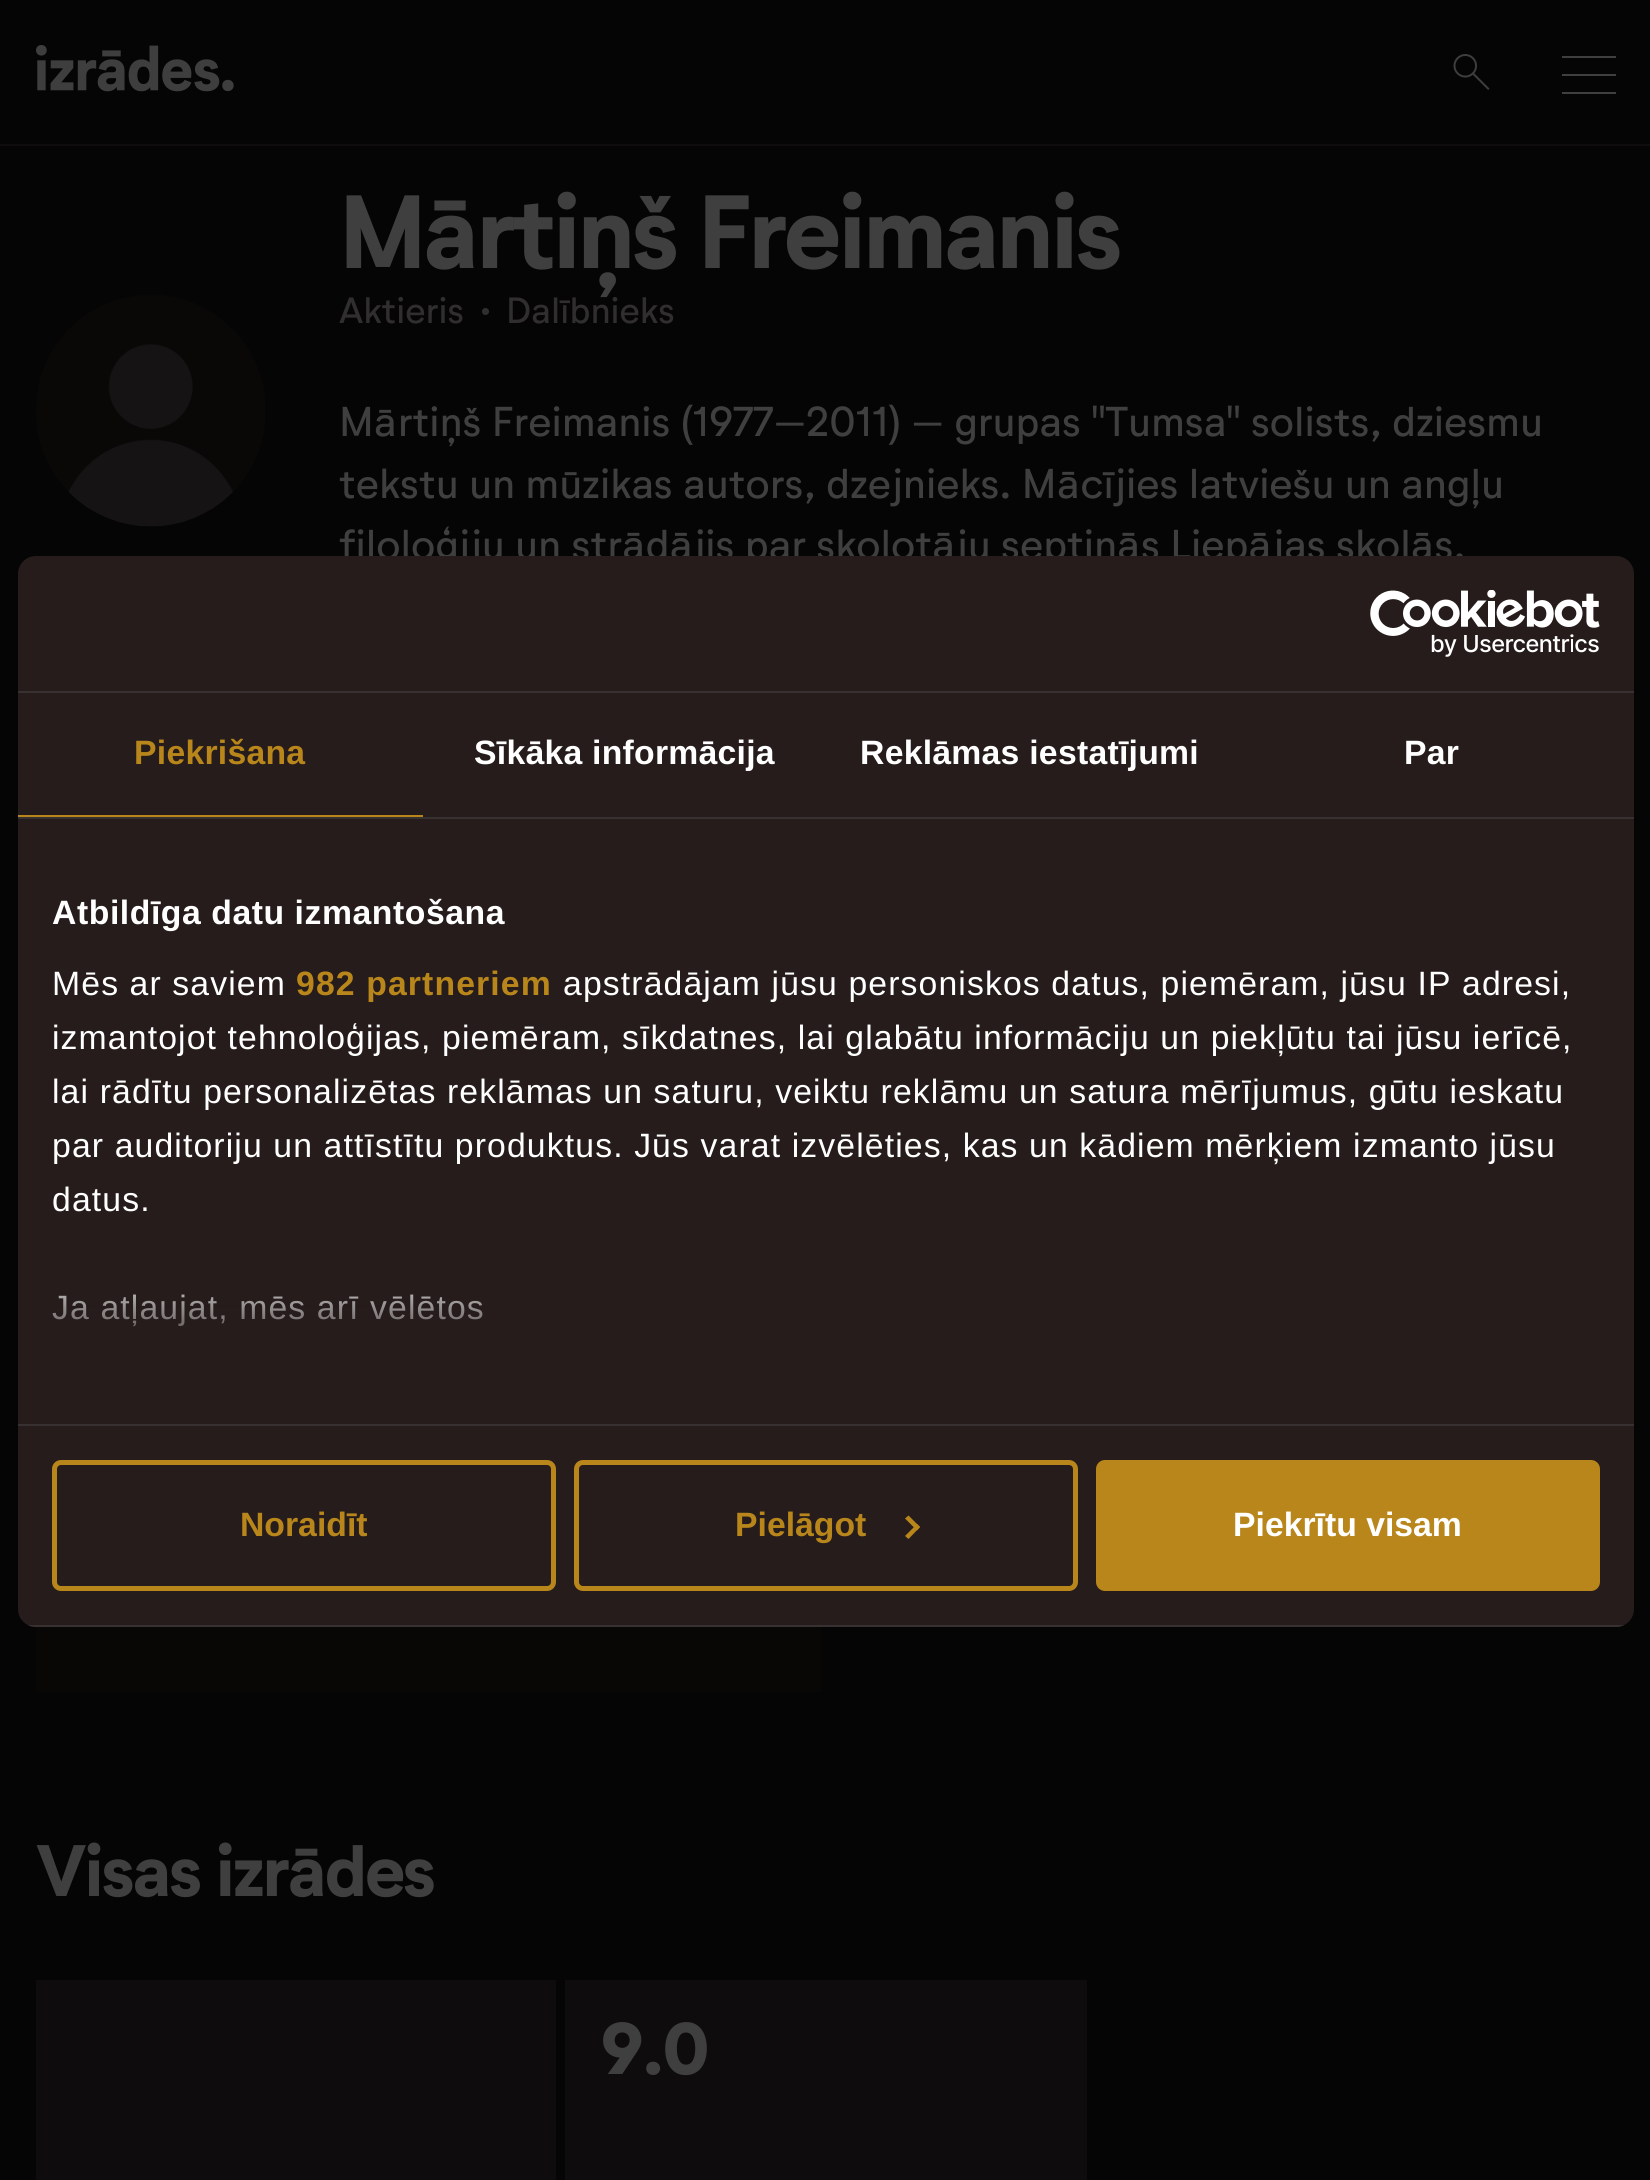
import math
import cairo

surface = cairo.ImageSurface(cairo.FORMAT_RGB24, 1650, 2180)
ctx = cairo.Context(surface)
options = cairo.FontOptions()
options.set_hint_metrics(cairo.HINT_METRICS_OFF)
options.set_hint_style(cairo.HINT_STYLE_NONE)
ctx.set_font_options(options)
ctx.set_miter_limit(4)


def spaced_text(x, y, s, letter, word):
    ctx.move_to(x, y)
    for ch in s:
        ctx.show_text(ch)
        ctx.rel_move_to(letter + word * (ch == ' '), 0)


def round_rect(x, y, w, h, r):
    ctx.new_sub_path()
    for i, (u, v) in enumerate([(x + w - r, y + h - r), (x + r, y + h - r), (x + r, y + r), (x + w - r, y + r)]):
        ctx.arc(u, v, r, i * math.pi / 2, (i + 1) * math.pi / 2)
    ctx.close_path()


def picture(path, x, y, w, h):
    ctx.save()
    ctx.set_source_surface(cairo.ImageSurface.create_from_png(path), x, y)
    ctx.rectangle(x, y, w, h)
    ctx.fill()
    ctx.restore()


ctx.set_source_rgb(0.027, 0.02, 0.02)
ctx.paint()
ctx.set_source_rgb(0.055, 0.047, 0.047)
ctx.rectangle(0, 144, 1650, 2)
ctx.fill()
picture("img1.png", 36, 45, 198, 47)
picture("img2.png", 1453, 54, 37, 36)
ctx.set_source_rgb(0.247, 0.247, 0.247)
ctx.rectangle(1562, 74, 54, 2)
ctx.fill()
ctx.rectangle(1562, 56, 54, 2)
ctx.fill()
ctx.rectangle(1562, 92, 54, 2)
ctx.fill()
picture("img3.png", 36, 295, 229, 232)
ctx.select_font_face("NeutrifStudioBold", cairo.FONT_SLANT_NORMAL, cairo.FONT_WEIGHT_BOLD)
ctx.set_font_size(102.75)
spaced_text(339, 268, "Mārtiņš Freimanis", -3.6, 0)
ctx.select_font_face("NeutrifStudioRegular")
ctx.set_font_size(36)
ctx.set_source_rgb(0.188, 0.18, 0.18)
ctx.move_to(339, 323)
ctx.show_text("Aktieris")
ctx.new_path()
ctx.arc(485.5, 311.5, 3.5, 0, 2 * math.pi)
ctx.fill()
ctx.move_to(506, 323)
ctx.show_text("Dalībnieks")
ctx.set_font_size(41.15)
ctx.set_source_rgb(0.247, 0.247, 0.247)
spaced_text(339, 436, "Mārtiņš Freimanis (1977–2011) – grupas \"Tumsa\" solists, dziesmu", 0, -0.25)
spaced_text(339, 498, "tekstu un mūzikas autors, dzejnieks. Mācījies latviešu un angļu", 0, -0.25)
spaced_text(339, 559, "filoloģiju un strādājis par skolotāju septiņās Liepājas skolās.", 0, -0.25)
ctx.set_source_rgb(0.039, 0.027, 0.027)
ctx.rectangle(36, 1627, 785, 65)
ctx.fill()
ctx.select_font_face("NeutrifStudioBold", cairo.FONT_SLANT_NORMAL, cairo.FONT_WEIGHT_BOLD)
ctx.set_font_size(72)
ctx.set_source_rgb(0.247, 0.247, 0.247)
spaced_text(36, 1896, "Visas izrādes", -2.5, 0)
ctx.set_source_rgb(0.055, 0.047, 0.047)
ctx.rectangle(36, 1980, 520, 200)
ctx.fill()
ctx.rectangle(565, 1980, 522, 200)
ctx.fill()
ctx.select_font_face("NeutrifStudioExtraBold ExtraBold")
ctx.set_source_rgb(0.247, 0.247, 0.247)
spaced_text(601, 2074, "9.0", -1.5, 0)
ctx.set_source_rgb(0.149, 0.11, 0.11)
round_rect(18, 556, 1616, 1071, 18)
ctx.fill()
ctx.set_source_rgb(0.22, 0.192, 0.192)
ctx.rectangle(18, 691, 1616, 2)
ctx.fill()
picture("img4.png", 1370, 590, 230, 67)
ctx.rectangle(18, 817, 1616, 2)
ctx.fill()
ctx.set_source_rgb(0.722, 0.525, 0.102)
ctx.rectangle(18, 815, 405, 2)
ctx.fill()
ctx.select_font_face("Liberation Sans", cairo.FONT_SLANT_NORMAL, cairo.FONT_WEIGHT_BOLD)
ctx.set_font_size(33.75)
spaced_text(134, 764, "Piekrišana", 0.25, 0)
ctx.set_source_rgb(1, 1, 1)
spaced_text(474, 764, "Sīkāka informācija", 0.25, 0)
spaced_text(860, 764, "Reklāmas iestatījumi", 0.25, 0)
spaced_text(1404, 764, "Par", 0.25, 0)
ctx.set_source_rgb(0.22, 0.192, 0.192)
ctx.rectangle(18, 1424, 1616, 2)
ctx.fill()
ctx.set_source_rgb(1, 1, 1)
spaced_text(52, 924, "Atbildīga datu izmantošana", 0.55, 0)
ctx.select_font_face("Liberation Sans")
spaced_text(52, 995, "Mēs ar saviem", 1.12, 0)
ctx.select_font_face("Liberation Sans", cairo.FONT_SLANT_NORMAL, cairo.FONT_WEIGHT_BOLD)
ctx.set_source_rgb(0.722, 0.525, 0.102)
spaced_text(296, 995, "982 partneriem", 1.12, 0)
ctx.select_font_face("Liberation Sans")
ctx.set_source_rgb(1, 1, 1)
spaced_text(563, 995, "apstrādājam jūsu personiskos datus, piemēram, jūsu IP adresi,", 1.12, 0)
spaced_text(52, 1049, "izmantojot tehnoloģijas, piemēram, sīkdatnes, lai glabātu informāciju un piekļūtu tai jūsu ierīcē,", 1.12, 0)
spaced_text(52, 1103, "lai rādītu personalizētas reklāmas un saturu, veiktu reklāmu un satura mērījumus, gūtu ieskatu", 1.12, 0)
spaced_text(52, 1157, "par auditoriju un attīstītu produktus. Jūs varat izvēlēties, kas un kādiem mērķiem izmanto jūsu", 1.12, 0)
spaced_text(52, 1211, "datus.", 1.12, 0)
spaced_text(52, 1319, "Ja atļaujat, mēs arī vēlētos", 1.12, 0)
gradient = cairo.LinearGradient(811, 1424, 811, 1256)
gradient.add_color_stop_rgba(0, 0.149, 0.11, 0.11, 1)
gradient.add_color_stop_rgba(0.5, 0.149, 0.11, 0.11, 0.8)
gradient.add_color_stop_rgba(1, 0.149, 0.11, 0.11, 0)
ctx.set_source(gradient)
ctx.rectangle(52, 1294, 431, 33)
ctx.fill()
ctx.save()
round_rect(18, 556, 1616, 1071, 18)
ctx.clip()
ctx.set_source_rgb(0.22, 0.192, 0.192)
ctx.rectangle(28, 1625, 1596, 2)
ctx.fill()
ctx.restore()
round_rect(54.5, 1462.5, 499, 126, 6.5)
ctx.set_source_rgb(0.722, 0.525, 0.102)
ctx.set_line_width(5)
ctx.stroke()
ctx.select_font_face("Liberation Sans", cairo.FONT_SLANT_NORMAL, cairo.FONT_WEIGHT_BOLD)
ctx.move_to(240, 1536)
ctx.show_text("Noraidīt")
round_rect(576.5, 1462.5, 499, 126, 6.5)
ctx.stroke()
ctx.move_to(735, 1536)
ctx.show_text("Pielāgot")
ctx.new_path()
ctx.move_to(908.5, 1515.5)
ctx.line_to(920, 1527)
ctx.line_to(917, 1530.5)
ctx.line_to(905, 1518.5)
ctx.close_path()
ctx.fill()
ctx.new_path()
ctx.move_to(917, 1524)
ctx.line_to(920, 1527)
ctx.line_to(908.5, 1539)
ctx.line_to(905, 1536)
ctx.close_path()
ctx.fill()
round_rect(1098.5, 1462.5, 499, 126, 6.5)
ctx.fill_preserve()
ctx.stroke()
ctx.set_source_rgb(1, 1, 1)
ctx.move_to(1233, 1536)
ctx.show_text("Piekrītu visam")
surface.write_to_png("page.png")
